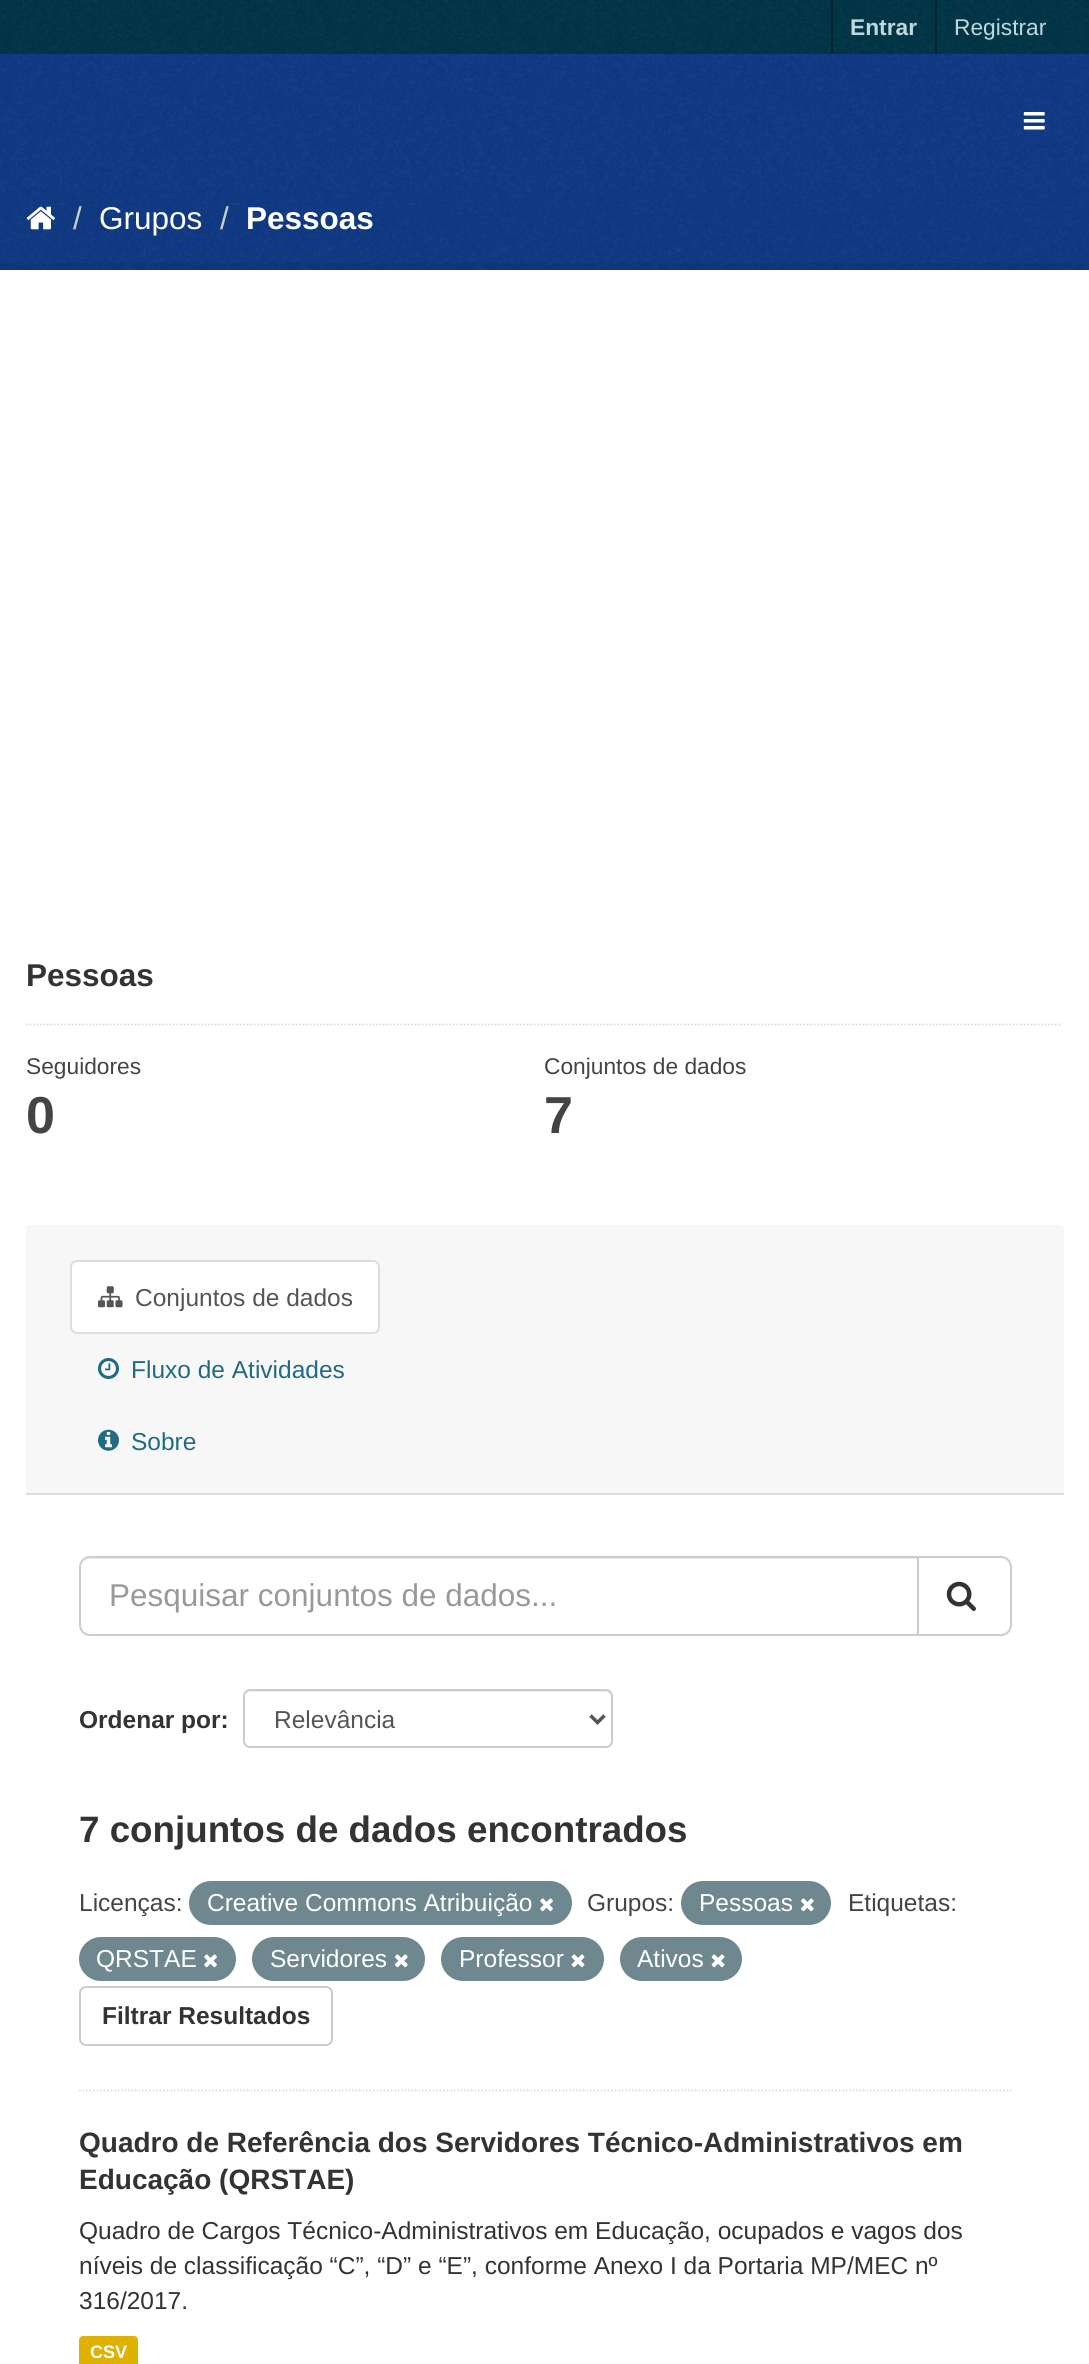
import math
import cairo

surface = cairo.ImageSurface(cairo.FORMAT_RGB24, 1089, 2364)
ctx = cairo.Context(surface)
options = cairo.FontOptions()
options.set_hint_metrics(cairo.HINT_METRICS_OFF)
options.set_hint_style(cairo.HINT_STYLE_NONE)
ctx.set_font_options(options)
ctx.set_miter_limit(4)


def round_rect(x, y, w, h, r):
    ctx.new_sub_path()
    for i, (u, v) in enumerate([(x + w - r, y + h - r), (x + r, y + h - r), (x + r, y + r), (x + w - r, y + r)]):
        ctx.arc(u, v, r, i * math.pi / 2, (i + 1) * math.pi / 2)
    ctx.close_path()


def picture(path, x, y, w, h):
    ctx.save()
    ctx.set_source_surface(cairo.ImageSurface.create_from_png(path), x, y)
    ctx.rectangle(x, y, w, h)
    ctx.fill()
    ctx.restore()


ctx.set_source_rgb(0.063, 0.227, 0.518)
ctx.paint()
picture("img1.png", 0, 189, 1089, 81)
ctx.set_source_rgb(0, 0.212, 0.278)
ctx.rectangle(0, 0, 1089, 54)
ctx.fill()
picture("img2.png", 0, 0, 1089, 54)
ctx.set_source_rgb(0, 0.137, 0.18)
ctx.rectangle(831, 0, 2, 54)
ctx.fill()
ctx.select_font_face("Liberation Sans", cairo.FONT_SLANT_NORMAL, cairo.FONT_WEIGHT_BOLD)
ctx.set_font_size(22.75)
ctx.set_source_rgb(0.749, 0.843, 0.871)
ctx.move_to(850, 35)
ctx.show_text("Entrar")
ctx.set_source_rgb(0, 0.137, 0.18)
ctx.rectangle(935, 0, 2, 54)
ctx.fill()
ctx.select_font_face("Liberation Sans")
ctx.set_source_rgb(0.749, 0.843, 0.871)
ctx.move_to(954, 35)
ctx.show_text("Registrar")
picture("img3.png", 0, 54, 1089, 135)
picture("img4.png", 1023, 112, 22, 18)
picture("img5.png", 26, 206, 29, 24)
ctx.set_font_size(31.5)
ctx.set_source_rgb(0.8, 0.8, 0.8)
ctx.move_to(73, 229)
ctx.show_text("/")
ctx.set_source_rgb(1, 1, 1)
ctx.move_to(99, 229)
ctx.show_text("Grupos")
ctx.set_source_rgb(0.8, 0.8, 0.8)
ctx.move_to(220, 229)
ctx.show_text("/")
ctx.select_font_face("Liberation Sans", cairo.FONT_SLANT_NORMAL, cairo.FONT_WEIGHT_BOLD)
ctx.set_source_rgb(1, 1, 1)
ctx.move_to(246, 229)
ctx.show_text("Pessoas")
ctx.rectangle(-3.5, 266.5, 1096, 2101)
ctx.set_source_rgba(0, 0, 0, 0.05)
ctx.set_line_width(7)
ctx.stroke()
ctx.set_source_rgb(1, 1, 1)
ctx.rectangle(0, 270, 1089, 2094)
ctx.fill()
ctx.set_source_rgb(0.2, 0.2, 0.2)
ctx.move_to(26, 986)
ctx.show_text("Pessoas")
ctx.new_path()
ctx.move_to(26, 1024.5)
ctx.line_to(1062, 1024.5)
ctx.set_source_rgb(0.867, 0.867, 0.867)
ctx.set_line_width(1.8)
ctx.set_dash([1.75, 1.75])
ctx.stroke()
ctx.select_font_face("Liberation Sans")
ctx.set_font_size(22.75)
ctx.set_source_rgb(0.267, 0.267, 0.267)
ctx.move_to(26, 1074)
ctx.show_text("Seguidores")
ctx.select_font_face("Liberation Sans", cairo.FONT_SLANT_NORMAL, cairo.FONT_WEIGHT_BOLD)
ctx.set_font_size(52)
ctx.move_to(26, 1133)
ctx.show_text("0")
ctx.select_font_face("Liberation Sans")
ctx.set_font_size(22.75)
ctx.move_to(544, 1074)
ctx.show_text("Conjuntos de dados")
ctx.select_font_face("Liberation Sans", cairo.FONT_SLANT_NORMAL, cairo.FONT_WEIGHT_BOLD)
ctx.set_font_size(52)
ctx.move_to(544, 1133)
ctx.show_text("7")
ctx.set_source_rgb(0.965, 0.965, 0.965)
ctx.new_path()
ctx.move_to(26, 1225)
ctx.line_to(1059, 1225)
ctx.curve_to(1062, 1225, 1064, 1227, 1064, 1230)
ctx.line_to(1064, 1495)
ctx.line_to(26, 1495)
ctx.close_path()
ctx.fill()
ctx.set_source_rgb(0.867, 0.867, 0.867)
ctx.rectangle(26, 1493, 1038, 2)
ctx.fill()
ctx.set_source_rgb(1, 1, 1)
round_rect(71, 1261, 308, 72, 6)
ctx.fill_preserve()
ctx.set_source_rgb(0.867, 0.867, 0.867)
ctx.set_line_width(2)
ctx.set_dash([])
ctx.stroke()
picture("img6.png", 98, 1286, 25, 22)
ctx.select_font_face("Liberation Sans")
ctx.set_font_size(24.5)
ctx.set_source_rgb(0.333, 0.333, 0.333)
ctx.move_to(135, 1306)
ctx.show_text("Conjuntos de dados")
picture("img7.png", 98, 1358, 21, 21)
ctx.set_source_rgb(0.125, 0.42, 0.51)
ctx.move_to(131, 1378)
ctx.show_text("Fluxo de Atividades")
picture("img8.png", 98, 1429, 21, 22)
ctx.move_to(131, 1450)
ctx.show_text("Sobre")
ctx.new_path()
ctx.move_to(79, 2090.5)
ctx.line_to(1011.5, 2090.5)
ctx.set_source_rgb(0.867, 0.867, 0.867)
ctx.set_line_width(1.8)
ctx.set_dash([1.75, 1.75])
ctx.stroke()
ctx.set_source_rgb(0.925, 0.925, 0.925)
ctx.new_path()
ctx.move_to(89, 1559)
ctx.line_to(917, 1559)
ctx.line_to(917, 1558)
ctx.line_to(90, 1558)
ctx.curve_to(87, 1558, 85, 1559, 83, 1561)
ctx.curve_to(85, 1560, 87, 1559, 89, 1559)
ctx.close_path()
ctx.fill()
ctx.new_path()
ctx.move_to(90, 1557)
ctx.line_to(918, 1557)
ctx.line_to(918, 1635)
ctx.line_to(90, 1635)
ctx.curve_to(84.5, 1635, 80, 1630.5, 80, 1625)
ctx.line_to(80, 1567)
ctx.curve_to(80, 1561.5, 84.5, 1557, 90, 1557)
ctx.close_path()
ctx.set_source_rgb(0.8, 0.8, 0.8)
ctx.set_line_width(2)
ctx.set_dash([])
ctx.stroke()
ctx.set_font_size(31.5)
ctx.set_source_rgb(0.6, 0.6, 0.6)
ctx.move_to(109, 1606)
ctx.show_text("Pesquisar conjuntos de dados...")
ctx.set_source_rgb(1, 1, 1)
ctx.new_path()
ctx.move_to(918, 1557)
ctx.line_to(1001, 1557)
ctx.curve_to(1006.5, 1557, 1011, 1561.5, 1011, 1567)
ctx.line_to(1011, 1625)
ctx.curve_to(1011, 1630.5, 1006.5, 1635, 1001, 1635)
ctx.line_to(918, 1635)
ctx.close_path()
ctx.fill_preserve()
ctx.set_source_rgb(0.8, 0.8, 0.8)
ctx.stroke()
picture("img9.png", 946, 1581, 30, 30)
ctx.select_font_face("Liberation Sans", cairo.FONT_SLANT_NORMAL, cairo.FONT_WEIGHT_BOLD)
ctx.set_font_size(24.5)
ctx.set_source_rgb(0.2, 0.2, 0.2)
ctx.move_to(79, 1728)
ctx.show_text("Ordenar por:")
ctx.set_source_rgb(0.925, 0.925, 0.925)
ctx.new_path()
ctx.move_to(250, 1692)
ctx.line_to(606, 1692)
ctx.curve_to(608, 1692, 611, 1695, 611, 1698)
ctx.curve_to(611, 1695, 610, 1691, 606, 1691)
ctx.line_to(250, 1691)
ctx.curve_to(246, 1691, 245, 1695, 245, 1698)
ctx.curve_to(245, 1695, 247, 1692, 250, 1692)
ctx.close_path()
ctx.fill()
round_rect(244, 1690, 368, 57, 6)
ctx.set_source_rgb(0.8, 0.8, 0.8)
ctx.stroke()
ctx.new_path()
ctx.move_to(590.5, 1715.5)
ctx.line_to(597.5, 1722.5)
ctx.line_to(604.5, 1715.5)
ctx.set_source_rgb(0.333, 0.333, 0.333)
ctx.set_line_width(3.5)
ctx.stroke()
ctx.select_font_face("Liberation Sans")
ctx.move_to(274, 1728)
ctx.show_text("Relevância")
ctx.select_font_face("Liberation Sans", cairo.FONT_SLANT_NORMAL, cairo.FONT_WEIGHT_BOLD)
ctx.set_font_size(36.75)
ctx.set_source_rgb(0.2, 0.2, 0.2)
ctx.move_to(79, 1842)
ctx.show_text("7 conjuntos de dados encontrados")
ctx.select_font_face("Liberation Sans")
ctx.set_font_size(24.5)
ctx.set_source_rgb(0.267, 0.267, 0.267)
ctx.move_to(79, 1911)
ctx.show_text("Licenças:")
ctx.set_source_rgb(0.435, 0.533, 0.565)
round_rect(189, 1881, 383, 44, 22)
ctx.fill()
ctx.set_source_rgb(1, 1, 1)
ctx.move_to(207, 1911)
ctx.show_text("Creative Commons Atribuição")
picture("img10.png", 540, 1898, 13, 14)
ctx.set_source_rgb(0.267, 0.267, 0.267)
ctx.move_to(587, 1911)
ctx.show_text("Grupos:")
ctx.set_source_rgb(0.435, 0.533, 0.565)
round_rect(681, 1881, 150, 44, 22)
ctx.fill()
ctx.set_source_rgb(1, 1, 1)
ctx.move_to(699, 1911)
ctx.show_text("Pessoas")
picture("img11.png", 801, 1898, 13, 14)
ctx.set_source_rgb(0.267, 0.267, 0.267)
ctx.move_to(848, 1911)
ctx.show_text("Etiquetas:")
ctx.set_source_rgb(0.435, 0.533, 0.565)
round_rect(79, 1937, 157, 44, 22)
ctx.fill()
ctx.set_source_rgb(1, 1, 1)
ctx.move_to(96, 1967)
ctx.show_text("QRSTAE")
picture("img10.png", 204, 1954, 13, 14)
ctx.set_source_rgb(0.435, 0.533, 0.565)
round_rect(252, 1937, 173, 44, 22)
ctx.fill()
ctx.set_source_rgb(1, 1, 1)
ctx.move_to(270, 1967)
ctx.show_text("Servidores")
picture("img11.png", 395, 1954, 13, 14)
ctx.set_source_rgb(0.435, 0.533, 0.565)
round_rect(441, 1937, 163, 44, 22)
ctx.fill()
ctx.set_source_rgb(1, 1, 1)
ctx.move_to(459, 1967)
ctx.show_text("Professor")
picture("img12.png", 571, 1954, 14, 14)
ctx.set_source_rgb(0.435, 0.533, 0.565)
round_rect(620, 1937, 122, 44, 22)
ctx.fill()
ctx.set_source_rgb(1, 1, 1)
ctx.move_to(637, 1967)
ctx.show_text("Ativos")
picture("img12.png", 711, 1954, 14, 14)
round_rect(80, 1987, 252, 58, 6)
ctx.set_source_rgb(0.8, 0.8, 0.8)
ctx.set_line_width(2)
ctx.stroke()
ctx.select_font_face("Liberation Sans", cairo.FONT_SLANT_NORMAL, cairo.FONT_WEIGHT_BOLD)
ctx.set_source_rgb(0.2, 0.2, 0.2)
ctx.move_to(102, 2024)
ctx.show_text("Filtrar Resultados")
ctx.set_font_size(28)
ctx.move_to(79, 2152)
ctx.show_text("Quadro de Referência dos Servidores Técnico-Administrativos em")
ctx.move_to(79, 2189)
ctx.show_text("Educação (QRSTAE)")
ctx.select_font_face("Liberation Sans")
ctx.set_font_size(24.5)
ctx.move_to(79, 2239)
ctx.show_text("Quadro de Cargos Técnico-Administrativos em Educação, ocupados e vagos dos")
ctx.move_to(79, 2274)
ctx.show_text("níveis de classificação “C”, “D” e “E”, conforme Anexo I da Portaria MP/MEC nº")
ctx.move_to(79, 2309)
ctx.show_text("316/2017.")
ctx.set_source_rgb(0.875, 0.694, 0)
round_rect(79, 2336, 59, 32, 4)
ctx.fill()
ctx.select_font_face("Liberation Sans", cairo.FONT_SLANT_NORMAL, cairo.FONT_WEIGHT_BOLD)
ctx.set_font_size(18)
ctx.set_source_rgb(1, 1, 1)
ctx.move_to(90, 2358)
ctx.show_text("CSV")
surface.write_to_png("page.png")
